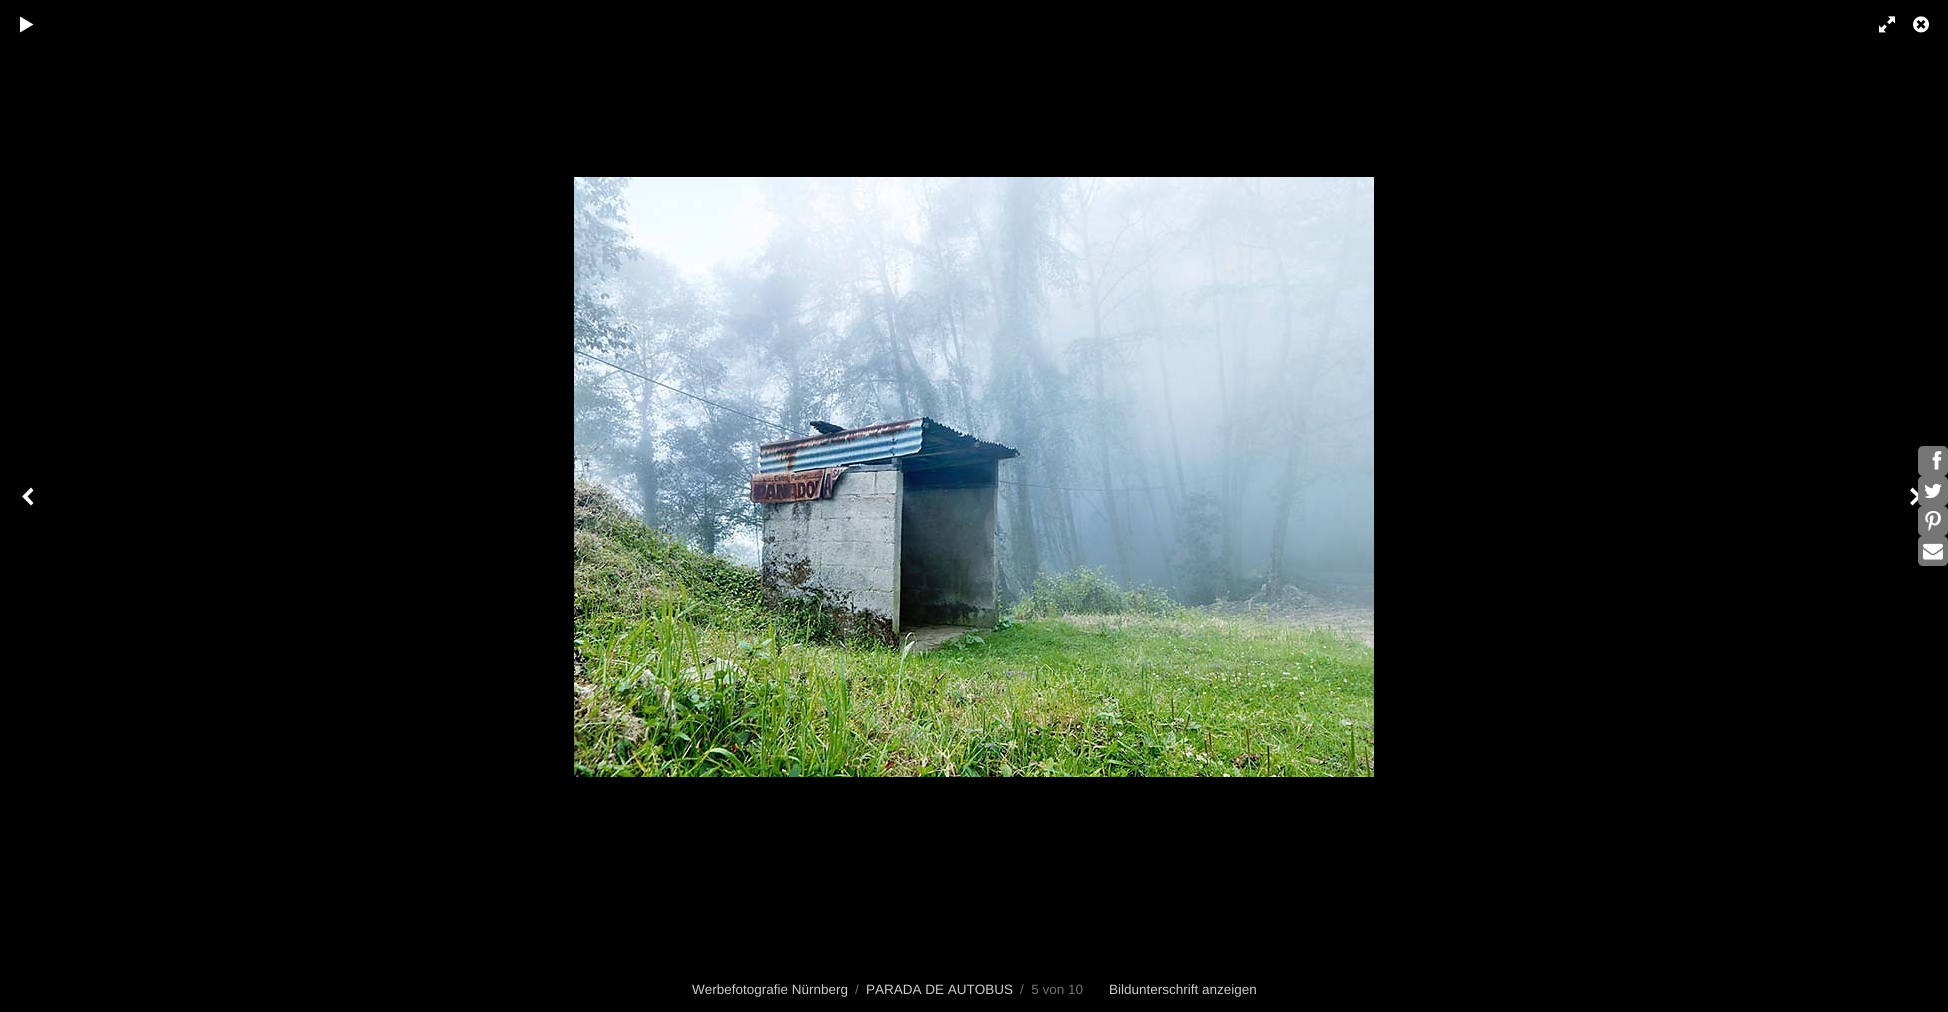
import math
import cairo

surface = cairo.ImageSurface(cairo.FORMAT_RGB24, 1948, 1012)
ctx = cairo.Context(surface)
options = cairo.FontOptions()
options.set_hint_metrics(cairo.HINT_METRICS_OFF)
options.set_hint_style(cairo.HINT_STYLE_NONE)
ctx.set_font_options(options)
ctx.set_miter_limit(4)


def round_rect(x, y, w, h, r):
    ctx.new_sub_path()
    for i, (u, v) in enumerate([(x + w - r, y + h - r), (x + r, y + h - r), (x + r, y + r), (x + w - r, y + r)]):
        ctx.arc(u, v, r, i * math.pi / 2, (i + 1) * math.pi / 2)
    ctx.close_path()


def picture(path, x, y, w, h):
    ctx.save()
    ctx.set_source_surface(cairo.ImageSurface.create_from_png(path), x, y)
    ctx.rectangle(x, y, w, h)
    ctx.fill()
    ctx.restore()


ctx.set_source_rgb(0, 0, 0)
ctx.paint()
ctx.set_source_rgb(0.459, 0.459, 0.459)
round_rect(1918, 446, 30, 30, 5)
ctx.fill()
picture("img1.png", 1932, 451, 10, 19)
ctx.set_source_rgb(1, 1, 1)
ctx.new_path()
ctx.move_to(1910, 503)
ctx.line_to(1916.5, 496.5)
ctx.line_to(1910, 490.5)
ctx.line_to(1912.5, 487.5)
ctx.line_to(1921.5, 496.5)
ctx.line_to(1912.5, 505.5)
ctx.close_path()
ctx.fill()
ctx.set_source_rgb(0.459, 0.459, 0.459)
round_rect(1918, 476, 30, 30, 5)
ctx.fill()
picture("img2.png", 1924, 483, 18, 16)
round_rect(1918, 506, 30, 30, 5)
ctx.fill()
picture("img3.png", 1925, 511, 16, 20)
round_rect(1918, 536, 30, 30, 5)
ctx.fill()
picture("img4.png", 1923, 543, 20, 17)
ctx.set_source_rgb(1, 1, 1)
ctx.new_path()
ctx.move_to(20, 32.5)
ctx.line_to(20, 16.5)
ctx.line_to(33.5, 24.5)
ctx.close_path()
ctx.fill()
picture("img5.png", 1879, 16, 16, 17)
picture("img6.png", 1913, 16, 16, 17)
ctx.new_path()
ctx.move_to(22, 496.5)
ctx.line_to(31, 487.5)
ctx.line_to(33.5, 490.5)
ctx.line_to(27.5, 496.5)
ctx.line_to(33.5, 503)
ctx.line_to(31, 505.5)
ctx.close_path()
ctx.fill()
picture("img7.png", 574, 177, 800, 600)
ctx.select_font_face("Liberation Sans")
ctx.set_font_size(13.5)
ctx.set_source_rgb(0.8, 0.8, 0.8)
ctx.move_to(692, 994)
ctx.show_text("Werbefotografie Nürnberg")
ctx.set_source_rgb(0.439, 0.439, 0.439)
ctx.move_to(855, 994)
ctx.show_text("/")
ctx.set_source_rgb(0.8, 0.8, 0.8)
ctx.move_to(866, 994)
ctx.show_text("PARADA DE AUTOBUS")
ctx.set_source_rgb(0.439, 0.439, 0.439)
ctx.move_to(1020, 994)
ctx.show_text("/  5 von 10")
ctx.set_source_rgb(0.8, 0.8, 0.8)
ctx.move_to(1109, 994)
ctx.show_text("Bildunterschrift anzeigen")
surface.write_to_png("page.png")
